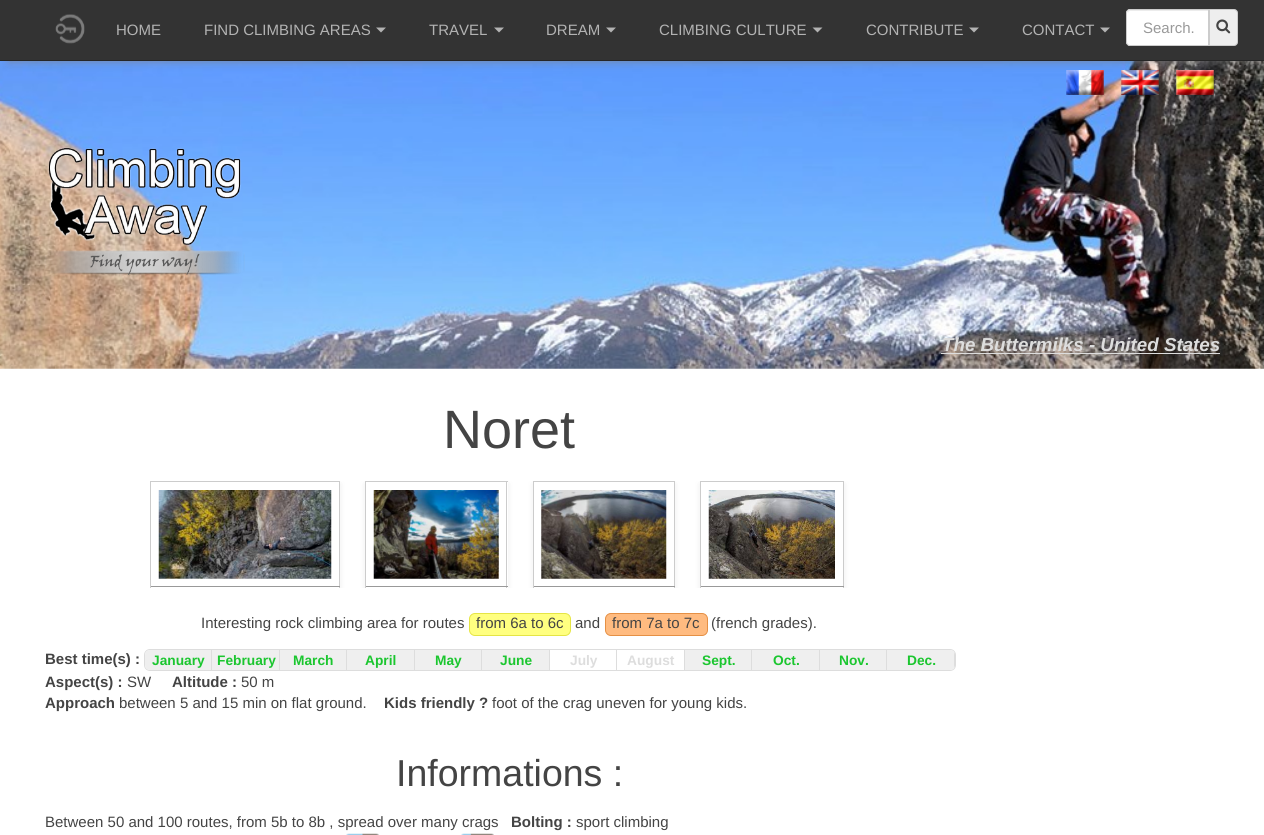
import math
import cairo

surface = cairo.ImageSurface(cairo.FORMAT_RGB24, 1264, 835)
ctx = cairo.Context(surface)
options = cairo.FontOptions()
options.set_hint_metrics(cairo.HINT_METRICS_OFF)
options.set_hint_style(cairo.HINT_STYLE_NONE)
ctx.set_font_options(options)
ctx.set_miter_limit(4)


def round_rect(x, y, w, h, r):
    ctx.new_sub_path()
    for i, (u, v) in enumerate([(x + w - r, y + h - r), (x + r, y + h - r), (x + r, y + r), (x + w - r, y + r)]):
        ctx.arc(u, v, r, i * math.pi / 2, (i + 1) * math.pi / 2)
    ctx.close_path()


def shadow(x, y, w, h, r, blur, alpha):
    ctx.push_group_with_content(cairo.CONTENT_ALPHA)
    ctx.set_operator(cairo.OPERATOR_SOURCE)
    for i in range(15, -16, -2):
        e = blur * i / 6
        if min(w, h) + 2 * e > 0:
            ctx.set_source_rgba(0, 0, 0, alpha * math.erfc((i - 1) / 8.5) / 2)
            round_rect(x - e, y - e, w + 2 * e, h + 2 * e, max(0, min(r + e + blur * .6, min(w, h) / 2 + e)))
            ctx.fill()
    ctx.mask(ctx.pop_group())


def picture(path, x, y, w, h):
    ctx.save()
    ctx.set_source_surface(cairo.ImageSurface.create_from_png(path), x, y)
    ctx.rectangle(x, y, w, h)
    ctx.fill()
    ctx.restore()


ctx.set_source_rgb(1, 1, 1)
ctx.paint()
picture("img3.png", 0, 61, 1264, 308)
picture("img4.png", 1066, 70, 38, 25)
picture("img5.png", 1121, 70, 38, 25)
picture("img6.png", 1176, 70, 38, 25)
ctx.set_source_rgb(0.502, 0.502, 0.502)
shadow(9, 16, 1247, 44, 0, 5, 1)
ctx.set_source_rgb(0.2, 0.2, 0.2)
ctx.rectangle(0, 0, 1264, 60)
ctx.fill()
ctx.set_source_rgb(0.149, 0.149, 0.149)
ctx.rectangle(0, 60, 1264, 1)
ctx.fill()
ctx.select_font_face("Liberation Sans")
ctx.set_font_size(15)
ctx.set_source_rgb(0.702, 0.702, 0.702)
ctx.move_to(116, 35)
ctx.show_text("HOME")
ctx.move_to(204, 35)
ctx.show_text("FIND CLIMBING AREAS")
ctx.new_path()
ctx.move_to(376, 27.5)
ctx.line_to(386, 27.5)
ctx.line_to(381, 32.5)
ctx.close_path()
ctx.fill()
ctx.move_to(429, 35)
ctx.show_text("TRAVEL")
ctx.new_path()
ctx.move_to(494, 27.5)
ctx.line_to(504, 27.5)
ctx.line_to(499, 32.5)
ctx.close_path()
ctx.fill()
ctx.move_to(546, 35)
ctx.show_text("DREAM")
ctx.new_path()
ctx.move_to(606, 27.5)
ctx.line_to(616, 27.5)
ctx.line_to(611, 32.5)
ctx.close_path()
ctx.fill()
ctx.move_to(659, 35)
ctx.show_text("CLIMBING CULTURE")
ctx.new_path()
ctx.move_to(812.5, 27.5)
ctx.line_to(822.5, 27.5)
ctx.line_to(817.5, 32.5)
ctx.close_path()
ctx.fill()
ctx.move_to(866, 35)
ctx.show_text("CONTRIBUTE")
ctx.new_path()
ctx.move_to(969, 27.5)
ctx.line_to(979, 27.5)
ctx.line_to(974, 32.5)
ctx.close_path()
ctx.fill()
ctx.move_to(1022, 35)
ctx.show_text("CONTACT")
ctx.new_path()
ctx.move_to(1100, 27.5)
ctx.line_to(1110, 27.5)
ctx.line_to(1105, 32.5)
ctx.close_path()
ctx.fill()
picture("img1.png", 55, 14, 30, 30)
ctx.set_source_rgb(1, 1, 1)
ctx.new_path()
ctx.move_to(1130, 9)
ctx.line_to(1209, 9)
ctx.line_to(1209, 46)
ctx.line_to(1130, 46)
ctx.curve_to(1128, 46, 1126, 44, 1126, 42)
ctx.line_to(1126, 13)
ctx.curve_to(1126, 11, 1128, 9, 1130, 9)
ctx.close_path()
ctx.fill()
ctx.set_source_rgb(0.925, 0.925, 0.925)
ctx.new_path()
ctx.move_to(1130, 11)
ctx.line_to(1208, 11)
ctx.line_to(1208, 10)
ctx.line_to(1130, 10)
ctx.curve_to(1129, 10, 1128, 11, 1128, 12)
ctx.line_to(1128, 14)
ctx.curve_to(1128, 12, 1129, 11, 1130, 11)
ctx.close_path()
ctx.fill()
ctx.new_path()
ctx.move_to(1130, 9.5)
ctx.line_to(1208.5, 9.5)
ctx.line_to(1208.5, 45.5)
ctx.line_to(1130, 45.5)
ctx.curve_to(1128, 45.5, 1126.5, 44, 1126.5, 42)
ctx.line_to(1126.5, 13)
ctx.curve_to(1126.5, 11, 1128, 9.5, 1130, 9.5)
ctx.close_path()
ctx.set_source_rgb(0.8, 0.8, 0.8)
ctx.set_line_width(1)
ctx.stroke()
ctx.set_source_rgb(0.6, 0.6, 0.6)
ctx.move_to(1143, 33)
ctx.show_text("Search.")
ctx.set_source_rgb(0.933, 0.933, 0.933)
ctx.new_path()
ctx.move_to(1209.5, 9.5)
ctx.line_to(1234, 9.5)
ctx.curve_to(1236, 9.5, 1237.5, 11, 1237.5, 13)
ctx.line_to(1237.5, 42)
ctx.curve_to(1237.5, 44, 1236, 45.5, 1234, 45.5)
ctx.line_to(1209.5, 45.5)
ctx.close_path()
ctx.fill_preserve()
ctx.set_source_rgb(0.8, 0.8, 0.8)
ctx.stroke()
picture("img2.png", 1216, 19, 15, 15)
picture("img7.png", 45, 147, 200, 128)
ctx.select_font_face("Liberation Sans", cairo.FONT_SLANT_ITALIC, cairo.FONT_WEIGHT_BOLD)
ctx.set_font_size(18.75)
ctx.set_source_rgb(0.867, 0.867, 0.867)
ctx.move_to(942, 351)
ctx.show_text("The Buttermilks - United States")
ctx.rectangle(941, 353, 279, 1)
ctx.fill()
ctx.select_font_face("Liberation Sans")
ctx.set_font_size(54)
ctx.set_source_rgb(0.267, 0.267, 0.267)
ctx.move_to(443, 448)
ctx.show_text("Noret")
ctx.save()
ctx.rectangle(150, 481, 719, 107)
ctx.clip()
ctx.set_source_rgb(0.251, 0.251, 0.251)
shadow(150, 484, 190, 106, 0, 3, 0.1)
shadow(365, 484, 143, 106, 0, 3, 0.1)
shadow(533, 484, 142, 106, 0, 3, 0.1)
shadow(700, 484, 144, 106, 0, 3, 0.1)
ctx.restore()
ctx.set_source_rgb(0.8, 0.8, 0.8)
ctx.rectangle(150, 481, 190, 1)
ctx.fill()
ctx.rectangle(339, 481, 1, 107)
ctx.fill()
ctx.set_source_rgb(1, 1, 1)
ctx.rectangle(151, 482, 188, 106)
ctx.fill()
ctx.set_source_rgb(0.6, 0.6, 0.6)
ctx.rectangle(150, 586, 190, 1)
ctx.fill()
ctx.set_source_rgb(0.8, 0.8, 0.8)
ctx.rectangle(150, 481, 1, 107)
ctx.fill()
ctx.rectangle(365, 481, 143, 1)
ctx.fill()
ctx.set_source_rgb(1, 1, 1)
ctx.rectangle(366, 482, 142, 106)
ctx.fill()
ctx.set_source_rgb(0.8, 0.8, 0.8)
ctx.rectangle(506, 481, 1, 107)
ctx.fill()
ctx.set_source_rgb(0.6, 0.6, 0.6)
ctx.rectangle(365, 586, 143, 1)
ctx.fill()
ctx.set_source_rgb(0.8, 0.8, 0.8)
ctx.rectangle(365, 481, 1, 107)
ctx.fill()
ctx.rectangle(533, 481, 142, 1)
ctx.fill()
ctx.rectangle(674, 481, 1, 107)
ctx.fill()
ctx.set_source_rgb(1, 1, 1)
ctx.rectangle(534, 482, 140, 106)
ctx.fill()
ctx.set_source_rgb(0.6, 0.6, 0.6)
ctx.rectangle(533, 586, 142, 1)
ctx.fill()
ctx.set_source_rgb(0.8, 0.8, 0.8)
ctx.rectangle(533, 481, 1, 107)
ctx.fill()
ctx.rectangle(700, 481, 144, 1)
ctx.fill()
ctx.set_source_rgb(1, 1, 1)
ctx.rectangle(701, 482, 142, 106)
ctx.fill()
ctx.set_source_rgb(0.8, 0.8, 0.8)
ctx.rectangle(843, 481, 1, 107)
ctx.fill()
ctx.set_source_rgb(0.6, 0.6, 0.6)
ctx.rectangle(700, 586, 144, 1)
ctx.fill()
ctx.set_source_rgb(0.8, 0.8, 0.8)
ctx.rectangle(700, 481, 1, 107)
ctx.fill()
picture("img8.png", 158, 490, 174, 89)
picture("img9.png", 373, 490, 126, 89)
picture("img10.png", 541, 490, 126, 89)
picture("img11.png", 708, 490, 127, 89)
ctx.set_font_size(15)
ctx.set_source_rgb(0.267, 0.267, 0.267)
ctx.move_to(201, 628)
ctx.show_text("Interesting rock climbing area for routes")
ctx.set_source_rgb(1, 1, 0.502)
round_rect(469.5, 613.5, 101, 22, 5.5)
ctx.fill_preserve()
ctx.set_source_rgb(0.898, 0.898, 0.271)
ctx.stroke()
ctx.set_source_rgb(0.267, 0.267, 0.267)
ctx.move_to(476, 628)
ctx.show_text("from 6a to 6c")
ctx.move_to(575, 628)
ctx.show_text("and")
ctx.set_source_rgb(1, 0.733, 0.502)
round_rect(605.5, 613.5, 102, 22, 5.5)
ctx.fill_preserve()
ctx.set_source_rgb(0.898, 0.565, 0.271)
ctx.stroke()
ctx.set_source_rgb(0.267, 0.267, 0.267)
ctx.move_to(612, 628)
ctx.show_text("from 7a to 7c")
ctx.move_to(711, 628)
ctx.show_text("(french grades).")
ctx.select_font_face("Liberation Sans", cairo.FONT_SLANT_NORMAL, cairo.FONT_WEIGHT_BOLD)
ctx.move_to(45, 664)
ctx.show_text("Best time(s) :")
round_rect(144.5, 649.5, 811, 21, 5.5)
ctx.set_source_rgb(0.867, 0.867, 0.867)
ctx.stroke()
ctx.set_source_rgb(0.937, 0.937, 0.937)
ctx.new_path()
ctx.move_to(150, 650)
ctx.line_to(213, 650)
ctx.line_to(213, 670)
ctx.line_to(150, 670)
ctx.curve_to(147, 670, 145, 668, 145, 665)
ctx.line_to(145, 655)
ctx.curve_to(145, 652, 147, 650, 150, 650)
ctx.close_path()
ctx.fill()
ctx.set_source_rgb(0.867, 0.867, 0.867)
ctx.rectangle(211, 650, 1, 20)
ctx.fill()
ctx.set_font_size(13.75)
ctx.set_source_rgb(0.106, 0.776, 0.184)
ctx.move_to(152, 665)
ctx.show_text("January")
ctx.set_source_rgb(0.937, 0.937, 0.937)
ctx.rectangle(213, 650, 66, 20)
ctx.fill()
ctx.set_source_rgb(0.867, 0.867, 0.867)
ctx.rectangle(279, 650, 1, 20)
ctx.fill()
ctx.set_source_rgb(0.106, 0.776, 0.184)
ctx.move_to(217, 665)
ctx.show_text("February")
ctx.set_source_rgb(0.937, 0.937, 0.937)
ctx.rectangle(280, 650, 134, 20)
ctx.fill()
ctx.set_source_rgb(0.867, 0.867, 0.867)
ctx.rectangle(346, 650, 1, 20)
ctx.fill()
ctx.set_source_rgb(0.106, 0.776, 0.184)
ctx.move_to(293, 665)
ctx.show_text("March")
ctx.set_source_rgb(0.867, 0.867, 0.867)
ctx.rectangle(414, 650, 1, 20)
ctx.fill()
ctx.set_source_rgb(0.106, 0.776, 0.184)
ctx.move_to(365, 665)
ctx.show_text("April")
ctx.set_source_rgb(0.937, 0.937, 0.937)
ctx.rectangle(415, 650, 134, 20)
ctx.fill()
ctx.set_source_rgb(0.867, 0.867, 0.867)
ctx.rectangle(481, 650, 1, 20)
ctx.fill()
ctx.set_source_rgb(0.106, 0.776, 0.184)
ctx.move_to(435, 665)
ctx.show_text("May")
ctx.set_source_rgb(0.867, 0.867, 0.867)
ctx.rectangle(549, 650, 1, 20)
ctx.fill()
ctx.set_source_rgb(0.106, 0.776, 0.184)
ctx.move_to(500, 665)
ctx.show_text("June")
ctx.set_source_rgb(0.867, 0.867, 0.867)
ctx.rectangle(616, 650, 1, 20)
ctx.fill()
ctx.move_to(570, 665)
ctx.show_text("July")
ctx.rectangle(684, 650, 1, 20)
ctx.fill()
ctx.move_to(627, 665)
ctx.show_text("August")
ctx.set_source_rgb(0.937, 0.937, 0.937)
ctx.rectangle(685, 650, 134, 20)
ctx.fill()
ctx.set_source_rgb(0.867, 0.867, 0.867)
ctx.rectangle(751, 650, 1, 20)
ctx.fill()
ctx.set_source_rgb(0.106, 0.776, 0.184)
ctx.move_to(702, 665)
ctx.show_text("Sept.")
ctx.set_source_rgb(0.867, 0.867, 0.867)
ctx.rectangle(819, 650, 1, 20)
ctx.fill()
ctx.set_source_rgb(0.106, 0.776, 0.184)
ctx.move_to(773, 665)
ctx.show_text("Oct.")
ctx.set_source_rgb(0.937, 0.937, 0.937)
ctx.rectangle(820, 650, 68, 20)
ctx.fill()
ctx.set_source_rgb(0.867, 0.867, 0.867)
ctx.rectangle(886, 650, 1, 20)
ctx.fill()
ctx.set_source_rgb(0.106, 0.776, 0.184)
ctx.move_to(839, 665)
ctx.show_text("Nov.")
ctx.set_source_rgb(0.937, 0.937, 0.937)
ctx.new_path()
ctx.move_to(888, 650)
ctx.line_to(950, 650)
ctx.curve_to(953, 650, 955, 652, 955, 655)
ctx.line_to(955, 665)
ctx.curve_to(955, 668, 953, 670, 950, 670)
ctx.line_to(888, 670)
ctx.close_path()
ctx.fill()
ctx.save()
round_rect(145, 650, 810, 20, 5)
ctx.clip()
ctx.set_source_rgb(0.867, 0.867, 0.867)
ctx.rectangle(954, 650, 1, 20)
ctx.fill()
ctx.restore()
ctx.set_source_rgb(0.106, 0.776, 0.184)
ctx.move_to(907, 665)
ctx.show_text("Dec.")
ctx.set_font_size(15)
ctx.set_source_rgb(0.267, 0.267, 0.267)
ctx.move_to(45, 687)
ctx.show_text("Aspect(s) :")
ctx.select_font_face("Liberation Sans")
ctx.move_to(127, 687)
ctx.show_text("SW")
ctx.select_font_face("Liberation Sans", cairo.FONT_SLANT_NORMAL, cairo.FONT_WEIGHT_BOLD)
ctx.move_to(172, 687)
ctx.show_text("Altitude :")
ctx.select_font_face("Liberation Sans")
ctx.move_to(241, 687)
ctx.show_text("50 m")
ctx.select_font_face("Liberation Sans", cairo.FONT_SLANT_NORMAL, cairo.FONT_WEIGHT_BOLD)
ctx.move_to(45, 708)
ctx.show_text("Approach")
ctx.select_font_face("Liberation Sans")
ctx.move_to(119, 708)
ctx.show_text("between 5 and 15 min on flat ground.")
ctx.select_font_face("Liberation Sans", cairo.FONT_SLANT_NORMAL, cairo.FONT_WEIGHT_BOLD)
ctx.move_to(384, 708)
ctx.show_text("Kids friendly ?")
ctx.select_font_face("Liberation Sans")
ctx.move_to(492, 708)
ctx.show_text("foot of the crag uneven for young kids.")
ctx.set_font_size(37.5)
ctx.move_to(396, 786)
ctx.show_text("Informations :")
ctx.set_font_size(15)
ctx.move_to(45, 827)
ctx.show_text("Between 50 and 100 routes, from 5b to 8b , spread over many crags")
ctx.select_font_face("Liberation Sans", cairo.FONT_SLANT_NORMAL, cairo.FONT_WEIGHT_BOLD)
ctx.move_to(511, 827)
ctx.show_text("Bolting :")
ctx.select_font_face("Liberation Sans")
ctx.move_to(576, 827)
ctx.show_text("sport climbing")
picture("img12.png", 346, 833, 33, 2)
picture("img13.png", 461, 833, 33, 2)
surface.write_to_png("page.png")
